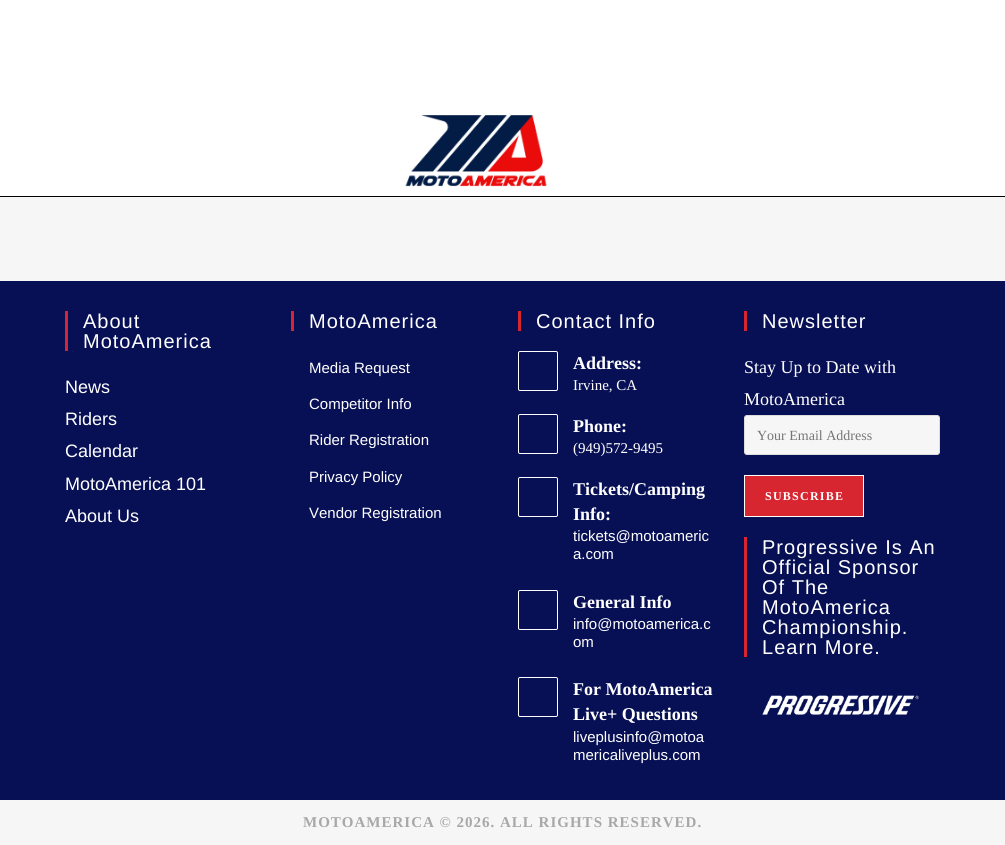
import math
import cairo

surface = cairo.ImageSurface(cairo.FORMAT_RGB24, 1005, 845)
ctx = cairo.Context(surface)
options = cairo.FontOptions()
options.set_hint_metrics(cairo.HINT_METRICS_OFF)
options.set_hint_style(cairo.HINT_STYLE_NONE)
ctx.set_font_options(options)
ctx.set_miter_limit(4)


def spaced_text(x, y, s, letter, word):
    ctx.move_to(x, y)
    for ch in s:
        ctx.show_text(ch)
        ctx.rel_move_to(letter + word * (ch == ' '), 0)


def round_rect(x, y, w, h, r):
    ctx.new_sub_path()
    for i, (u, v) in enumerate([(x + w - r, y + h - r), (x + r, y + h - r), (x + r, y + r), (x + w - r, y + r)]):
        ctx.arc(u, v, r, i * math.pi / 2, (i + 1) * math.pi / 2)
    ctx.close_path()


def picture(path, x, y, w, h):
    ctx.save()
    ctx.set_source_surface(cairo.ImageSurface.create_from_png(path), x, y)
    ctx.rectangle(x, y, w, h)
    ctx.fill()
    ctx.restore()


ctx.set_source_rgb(0.961, 0.961, 0.961)
ctx.paint()
ctx.set_source_rgb(1, 1, 1)
ctx.rectangle(0, 0, 1005, 196)
ctx.fill()
ctx.set_source_rgb(0, 0, 0)
ctx.rectangle(0, 196, 1005, 1)
ctx.fill()
picture("img1.png", 405, 115, 142, 72)
ctx.set_source_rgb(0.035, 0.063, 0.333)
ctx.rectangle(0, 281, 1005, 519)
ctx.fill()
ctx.set_source_rgb(0.847, 0.149, 0.192)
ctx.rectangle(65, 311, 3, 40)
ctx.fill()
ctx.select_font_face("Liberation Sans")
ctx.set_font_size(20)
ctx.set_source_rgb(1, 1, 1)
spaced_text(83, 328, "About", 1, 0)
spaced_text(83, 348, "MotoAmerica", 1, 0)
ctx.set_font_size(18)
ctx.move_to(65, 393)
ctx.show_text("News")
ctx.move_to(65, 425)
ctx.show_text("Riders")
ctx.move_to(65, 457)
ctx.show_text("Calendar")
ctx.move_to(65, 490)
ctx.show_text("MotoAmerica 101")
ctx.move_to(65, 522)
ctx.show_text("About Us")
ctx.set_source_rgb(0.847, 0.149, 0.192)
ctx.rectangle(291, 311, 3, 20)
ctx.fill()
ctx.set_font_size(20)
ctx.set_source_rgb(1, 1, 1)
spaced_text(309, 328, "MotoAmerica", 1, 0)
ctx.set_font_size(15)
ctx.move_to(309, 373)
ctx.show_text("Media Request")
ctx.move_to(309, 409)
ctx.show_text("Competitor Info")
ctx.move_to(309, 445)
ctx.show_text("Rider Registration")
ctx.move_to(309, 482)
ctx.show_text("Privacy Policy")
ctx.move_to(309, 518)
ctx.show_text("Vendor Registration")
ctx.set_source_rgb(0.847, 0.149, 0.192)
ctx.rectangle(518, 311, 3, 20)
ctx.fill()
ctx.set_font_size(20)
ctx.set_source_rgb(1, 1, 1)
spaced_text(536, 328, "Contact Info", 1, 0)
round_rect(518.5, 351.5, 39, 39, 1.5)
ctx.set_line_width(1)
ctx.stroke()
ctx.select_font_face("Liberation Serif", cairo.FONT_SLANT_NORMAL, cairo.FONT_WEIGHT_BOLD)
ctx.set_font_size(18)
ctx.move_to(573, 369)
ctx.show_text("Address:")
ctx.select_font_face("Liberation Serif")
ctx.set_font_size(15)
ctx.move_to(573, 390)
ctx.show_text("Irvine, CA")
round_rect(518.5, 414.5, 39, 39, 1.5)
ctx.stroke()
ctx.select_font_face("Liberation Serif", cairo.FONT_SLANT_NORMAL, cairo.FONT_WEIGHT_BOLD)
ctx.set_font_size(18)
ctx.move_to(573, 432)
ctx.show_text("Phone:")
ctx.select_font_face("Liberation Serif")
ctx.set_font_size(15)
ctx.move_to(573, 453)
ctx.show_text("(949)572-9495")
round_rect(518.5, 477.5, 39, 39, 1.5)
ctx.stroke()
ctx.select_font_face("Liberation Serif", cairo.FONT_SLANT_NORMAL, cairo.FONT_WEIGHT_BOLD)
ctx.set_font_size(18)
ctx.move_to(573, 495)
ctx.show_text("Tickets/Camping")
ctx.move_to(573, 520)
ctx.show_text("Info:")
ctx.select_font_face("Liberation Sans")
ctx.set_font_size(15)
ctx.move_to(573, 541)
ctx.show_text("tickets@motoameric")
ctx.move_to(573, 559)
ctx.show_text("a.com")
round_rect(518.5, 590.5, 39, 39, 1.5)
ctx.stroke()
ctx.select_font_face("Liberation Serif", cairo.FONT_SLANT_NORMAL, cairo.FONT_WEIGHT_BOLD)
ctx.set_font_size(18)
ctx.move_to(573, 608)
ctx.show_text("General Info")
ctx.select_font_face("Liberation Sans")
ctx.set_font_size(15)
ctx.move_to(573, 629)
ctx.show_text("info@motoamerica.c")
ctx.move_to(573, 647)
ctx.show_text("om")
round_rect(518.5, 677.5, 39, 39, 1.5)
ctx.stroke()
ctx.select_font_face("Liberation Serif", cairo.FONT_SLANT_NORMAL, cairo.FONT_WEIGHT_BOLD)
ctx.set_font_size(18)
ctx.move_to(573, 695)
ctx.show_text("For MotoAmerica")
ctx.move_to(573, 720)
ctx.show_text("Live+ Questions")
ctx.select_font_face("Liberation Sans")
ctx.set_font_size(15)
ctx.move_to(573, 742)
ctx.show_text("liveplusinfo@motoa")
ctx.move_to(573, 760)
ctx.show_text("mericaliveplus.com")
ctx.set_source_rgb(0.847, 0.149, 0.192)
ctx.rectangle(744, 311, 3, 20)
ctx.fill()
ctx.set_font_size(20)
ctx.set_source_rgb(1, 1, 1)
spaced_text(762, 328, "Newsletter", 1, 0)
ctx.select_font_face("Liberation Serif")
ctx.set_font_size(18)
ctx.move_to(744, 373)
ctx.show_text("Stay Up to Date with")
ctx.move_to(744, 405)
ctx.show_text("MotoAmerica")
ctx.set_source_rgb(0.961, 0.961, 0.961)
round_rect(744.5, 415.5, 195, 39, 2.5)
ctx.fill_preserve()
ctx.set_source_rgb(0.867, 0.867, 0.867)
ctx.stroke()
ctx.set_font_size(14)
ctx.set_source_rgb(0.459, 0.459, 0.459)
ctx.move_to(757, 440)
ctx.show_text("Your Email Address")
ctx.set_source_rgb(0.847, 0.149, 0.192)
ctx.rectangle(744.5, 475.5, 119, 41)
ctx.fill_preserve()
ctx.set_source_rgb(1, 1, 1)
ctx.stroke()
ctx.select_font_face("Liberation Serif", cairo.FONT_SLANT_NORMAL, cairo.FONT_WEIGHT_BOLD)
ctx.set_font_size(12)
spaced_text(765, 500, "SUBSCRIBE", 1.25, 0)
ctx.set_source_rgb(0.847, 0.149, 0.192)
ctx.rectangle(744, 537, 3, 120)
ctx.fill()
ctx.select_font_face("Liberation Sans")
ctx.set_font_size(20)
ctx.set_source_rgb(1, 1, 1)
spaced_text(762, 554, "Progressive Is An", 1, 0)
spaced_text(762, 574, "Official Sponsor", 1, 0)
spaced_text(762, 594, "Of The", 1, 0)
spaced_text(762, 614, "MotoAmerica", 1, 0)
spaced_text(762, 634, "Championship.", 1, 0)
spaced_text(762, 654, "Learn More.", 1, 0)
picture("img2.png", 762, 695, 157, 20)
ctx.select_font_face("Liberation Serif", cairo.FONT_SLANT_NORMAL, cairo.FONT_WEIGHT_BOLD)
ctx.set_font_size(15)
ctx.set_source_rgb(0.659, 0.659, 0.659)
spaced_text(303, 827, "MOTOAMERICA © 2026. ALL RIGHTS RESERVED.", 1, 0)
surface.write_to_png("page.png")
